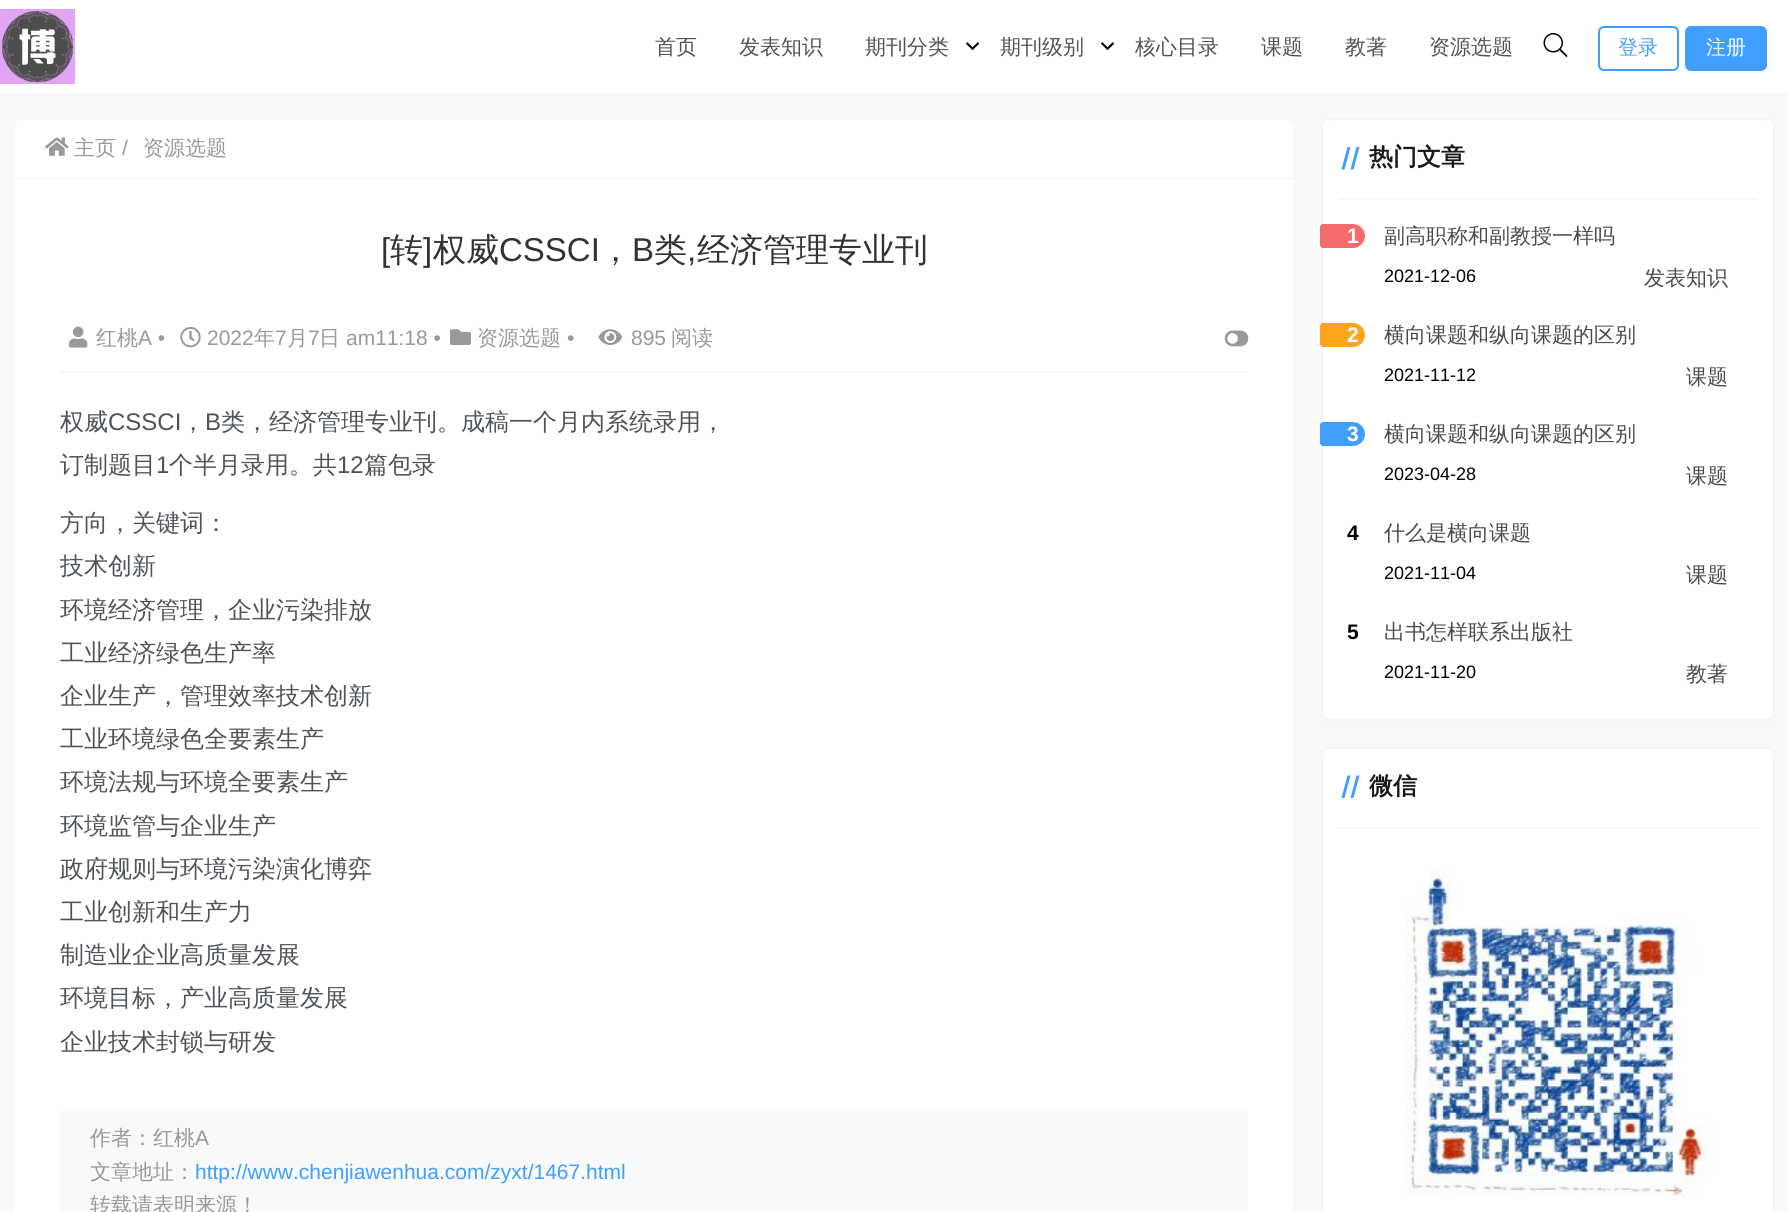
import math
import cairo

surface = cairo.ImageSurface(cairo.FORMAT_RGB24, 1788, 1212)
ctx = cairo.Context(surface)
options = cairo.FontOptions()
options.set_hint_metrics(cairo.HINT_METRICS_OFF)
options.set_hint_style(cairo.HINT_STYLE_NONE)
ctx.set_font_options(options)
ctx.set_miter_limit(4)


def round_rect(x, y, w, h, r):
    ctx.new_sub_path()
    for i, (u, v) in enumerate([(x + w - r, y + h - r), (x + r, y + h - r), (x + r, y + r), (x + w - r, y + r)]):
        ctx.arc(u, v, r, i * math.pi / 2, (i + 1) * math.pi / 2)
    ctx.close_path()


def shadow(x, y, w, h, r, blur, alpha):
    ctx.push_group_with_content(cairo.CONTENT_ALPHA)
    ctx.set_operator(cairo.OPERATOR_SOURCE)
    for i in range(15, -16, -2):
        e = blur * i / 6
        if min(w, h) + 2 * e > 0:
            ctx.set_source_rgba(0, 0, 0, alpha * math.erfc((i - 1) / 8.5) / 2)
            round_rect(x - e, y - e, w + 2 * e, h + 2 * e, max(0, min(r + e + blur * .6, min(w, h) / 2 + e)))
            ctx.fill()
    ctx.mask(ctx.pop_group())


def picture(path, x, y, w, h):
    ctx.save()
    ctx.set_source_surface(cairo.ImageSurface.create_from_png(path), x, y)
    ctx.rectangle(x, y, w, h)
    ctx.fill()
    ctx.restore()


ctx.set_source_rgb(0.969, 0.976, 0.98)
ctx.paint()
ctx.set_source_rgb(1, 1, 1)
ctx.rectangle(0, 0, 1788, 93)
ctx.fill()
picture("img1.png", 0, 9, 75, 75)
ctx.select_font_face("WenQuanYi Zen Hei Medium")
ctx.set_font_size(21)
ctx.set_source_rgb(0.306, 0.325, 0.345)
ctx.move_to(655, 54)
ctx.show_text("首页")
ctx.move_to(739, 54)
ctx.show_text("发表知识")
ctx.move_to(865, 54)
ctx.show_text("期刊分类")
picture("img2.png", 966, 42, 14, 8)
ctx.move_to(1000, 54)
ctx.show_text("期刊级别")
picture("img2.png", 1101, 42, 14, 8)
ctx.move_to(1135, 54)
ctx.show_text("核心目录")
ctx.move_to(1261, 54)
ctx.show_text("课题")
ctx.move_to(1345, 54)
ctx.show_text("教著")
ctx.move_to(1429, 54)
ctx.show_text("资源选题")
picture("img3.png", 1543, 33, 25, 24)
round_rect(1599, 27, 79, 43, 5)
ctx.set_source_rgb(0.251, 0.62, 1)
ctx.stroke()
ctx.set_font_size(20)
ctx.move_to(1618, 54)
ctx.show_text("登录")
round_rect(1686, 27, 80, 43, 5)
ctx.fill_preserve()
ctx.stroke()
ctx.set_source_rgb(1, 1, 1)
ctx.move_to(1706, 54)
ctx.show_text("注册")
round_rect(15, 120, 1278, 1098, 6)
ctx.fill()
ctx.set_source_rgb(0.969, 0.969, 0.969)
ctx.rectangle(15, 177, 1278, 2)
ctx.fill()
picture("img4.png", 45, 137, 24, 19)
ctx.set_font_size(21)
ctx.set_source_rgb(0.6, 0.6, 0.6)
ctx.move_to(74, 155)
ctx.show_text("主页")
ctx.select_font_face("Liberation Sans")
ctx.move_to(122, 155)
ctx.show_text("/")
ctx.select_font_face("WenQuanYi Zen Hei Medium")
ctx.move_to(143, 155)
ctx.show_text("资源选题")
ctx.select_font_face("Liberation Sans")
ctx.set_font_size(33)
ctx.set_source_rgb(0.2, 0.2, 0.2)
ctx.move_to(381, 261)
ctx.show_text("[")
ctx.select_font_face("WenQuanYi Zen Hei Medium")
ctx.move_to(390, 261)
ctx.show_text("转")
ctx.select_font_face("Liberation Sans")
ctx.move_to(423, 261)
ctx.show_text("]")
ctx.select_font_face("WenQuanYi Zen Hei Medium")
ctx.move_to(433, 261)
ctx.show_text("权威")
ctx.select_font_face("Liberation Sans")
ctx.move_to(499, 261)
ctx.show_text("CSSCI")
ctx.select_font_face("WenQuanYi Zen Hei Medium")
ctx.move_to(599, 261)
ctx.show_text("，")
ctx.select_font_face("Liberation Sans")
ctx.move_to(632, 261)
ctx.show_text("B")
ctx.select_font_face("WenQuanYi Zen Hei Medium")
ctx.move_to(654, 261)
ctx.show_text("类")
ctx.select_font_face("Liberation Sans")
ctx.move_to(687, 261)
ctx.show_text(",")
ctx.select_font_face("WenQuanYi Zen Hei Medium")
ctx.move_to(697, 261)
ctx.show_text("经济管理专业刊")
ctx.set_source_rgb(0.961, 0.965, 0.969)
ctx.rectangle(60, 371, 1188, 2)
ctx.fill()
picture("img5.png", 69, 326, 19, 22)
ctx.set_font_size(21)
ctx.set_source_rgb(0.6, 0.6, 0.6)
ctx.move_to(96, 345)
ctx.show_text("红桃")
ctx.select_font_face("Liberation Sans")
ctx.move_to(138, 345)
ctx.show_text("A •")
picture("img6.png", 180, 327, 21, 21)
ctx.move_to(207, 345)
ctx.show_text("2022")
ctx.select_font_face("WenQuanYi Zen Hei Medium")
ctx.move_to(254, 345)
ctx.show_text("年")
ctx.select_font_face("Liberation Sans")
ctx.move_to(275, 345)
ctx.show_text("7")
ctx.select_font_face("WenQuanYi Zen Hei Medium")
ctx.move_to(287, 345)
ctx.show_text("月")
ctx.select_font_face("Liberation Sans")
ctx.move_to(308, 345)
ctx.show_text("7")
ctx.select_font_face("WenQuanYi Zen Hei Medium")
ctx.move_to(319, 345)
ctx.show_text("日")
ctx.select_font_face("Liberation Sans")
ctx.move_to(346, 345)
ctx.show_text("am11:18 •")
picture("img7.png", 450, 329, 21, 16)
ctx.select_font_face("WenQuanYi Zen Hei Medium")
ctx.move_to(477, 345)
ctx.show_text("资源选题")
ctx.select_font_face("Liberation Sans")
ctx.move_to(567, 345)
ctx.show_text("•")
picture("img8.png", 598, 329, 25, 16)
ctx.move_to(631, 345)
ctx.show_text("895")
ctx.select_font_face("WenQuanYi Zen Hei Medium")
ctx.move_to(671, 345)
ctx.show_text("阅读")
picture("img9.png", 1224, 330, 25, 17)
ctx.set_font_size(24)
ctx.set_source_rgb(0.306, 0.325, 0.345)
ctx.move_to(60, 430)
ctx.show_text("权威")
ctx.select_font_face("Liberation Sans")
ctx.move_to(108, 430)
ctx.show_text("CSSCI")
ctx.select_font_face("WenQuanYi Zen Hei Medium")
ctx.move_to(181, 430)
ctx.show_text("，")
ctx.select_font_face("Liberation Sans")
ctx.move_to(205, 430)
ctx.show_text("B")
ctx.select_font_face("WenQuanYi Zen Hei Medium")
ctx.move_to(221, 430)
ctx.show_text("类，经济管理专业刊。成稿一个月内系统录用，")
ctx.move_to(60, 473)
ctx.show_text("订制题目")
ctx.select_font_face("Liberation Sans")
ctx.move_to(156, 473)
ctx.show_text("1")
ctx.select_font_face("WenQuanYi Zen Hei Medium")
ctx.move_to(169, 473)
ctx.show_text("个半月录用。共")
ctx.select_font_face("Liberation Sans")
ctx.move_to(337, 473)
ctx.show_text("12")
ctx.select_font_face("WenQuanYi Zen Hei Medium")
ctx.move_to(364, 473)
ctx.show_text("篇包录")
ctx.move_to(60, 531)
ctx.show_text("方向，关键词：")
ctx.move_to(60, 574)
ctx.show_text("技术创新")
ctx.move_to(60, 618)
ctx.show_text("环境经济管理，企业污染排放")
ctx.move_to(60, 661)
ctx.show_text("工业经济绿色生产率")
ctx.move_to(60, 704)
ctx.show_text("企业生产，管理效率技术创新")
ctx.move_to(60, 747)
ctx.show_text("工业环境绿色全要素生产")
ctx.move_to(60, 790)
ctx.show_text("环境法规与环境全要素生产")
ctx.move_to(60, 834)
ctx.show_text("环境监管与企业生产")
ctx.move_to(60, 877)
ctx.show_text("政府规则与环境污染演化博弈")
ctx.move_to(60, 920)
ctx.show_text("工业创新和生产力")
ctx.move_to(60, 963)
ctx.show_text("制造业企业高质量发展")
ctx.move_to(60, 1006)
ctx.show_text("环境目标，产业高质量发展")
ctx.move_to(60, 1050)
ctx.show_text("企业技术封锁与研发")
ctx.set_source_rgb(0.969, 0.976, 0.98)
round_rect(60, 1110, 1188, 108, 6)
ctx.fill()
ctx.set_font_size(21)
ctx.set_source_rgb(0.6, 0.6, 0.6)
ctx.move_to(90, 1145)
ctx.show_text("作者：红桃")
ctx.select_font_face("Liberation Sans")
ctx.move_to(195, 1145)
ctx.show_text("A")
ctx.select_font_face("WenQuanYi Zen Hei Medium")
ctx.move_to(90, 1179)
ctx.show_text("文章地址：")
ctx.select_font_face("Liberation Sans")
ctx.set_source_rgb(0.251, 0.62, 1)
ctx.move_to(195, 1179)
ctx.show_text("http://www.chenjiawenhua.com/zyxt/1467.html")
ctx.select_font_face("WenQuanYi Zen Hei Medium")
ctx.set_source_rgb(0.6, 0.6, 0.6)
ctx.move_to(90, 1212)
ctx.show_text("转载请表明来源！")
ctx.set_source_rgb(0.384, 0.486, 0.6)
shadow(1323, 120, 450, 599, 6, 1.5, 0.1)
ctx.set_source_rgb(1, 1, 1)
round_rect(1323, 120, 450, 599, 6)
ctx.fill()
ctx.set_source_rgb(0.961, 0.965, 0.969)
ctx.rectangle(1338, 198, 420, 2)
ctx.fill()
ctx.set_source_rgb(0.251, 0.62, 1)
ctx.new_path()
ctx.move_to(1347.5, 147)
ctx.line_to(1350.5, 147)
ctx.line_to(1344.5, 169.5)
ctx.line_to(1341.5, 169.5)
ctx.close_path()
ctx.fill()
ctx.new_path()
ctx.move_to(1356.5, 147)
ctx.line_to(1359.5, 147)
ctx.line_to(1353.5, 169.5)
ctx.line_to(1350.5, 169.5)
ctx.close_path()
ctx.fill()
ctx.select_font_face("WenQuanYi Zen Hei", cairo.FONT_SLANT_NORMAL, cairo.FONT_WEIGHT_BOLD)
ctx.set_font_size(24)
ctx.set_source_rgb(0.094, 0.098, 0.102)
ctx.move_to(1369, 165)
ctx.show_text("热门文章")
ctx.set_source_rgb(0.961, 0.424, 0.424)
ctx.new_path()
ctx.move_to(1323, 224)
ctx.line_to(1353, 224)
ctx.curve_to(1359.5, 224, 1365, 229.5, 1365, 236)
ctx.curve_to(1365, 242.5, 1359.5, 248, 1353, 248)
ctx.line_to(1323, 248)
ctx.curve_to(1321.5, 248, 1320, 246.5, 1320, 245)
ctx.line_to(1320, 227)
ctx.curve_to(1320, 225.5, 1321.5, 224, 1323, 224)
ctx.close_path()
ctx.fill()
ctx.select_font_face("Liberation Sans", cairo.FONT_SLANT_NORMAL, cairo.FONT_WEIGHT_BOLD)
ctx.set_font_size(21)
ctx.set_source_rgb(1, 1, 1)
ctx.move_to(1347, 243)
ctx.show_text("1")
ctx.select_font_face("WenQuanYi Zen Hei Medium")
ctx.set_source_rgb(0.286, 0.294, 0.302)
ctx.move_to(1384, 243)
ctx.show_text("副高职称和副教授一样吗")
ctx.select_font_face("Liberation Sans")
ctx.set_font_size(18)
ctx.set_source_rgb(0, 0, 0)
ctx.move_to(1384, 282)
ctx.show_text("2021-12-06")
ctx.select_font_face("WenQuanYi Zen Hei Medium")
ctx.set_font_size(21)
ctx.set_source_rgb(0.286, 0.294, 0.302)
ctx.move_to(1644, 285)
ctx.show_text("发表知识")
ctx.set_source_rgb(1, 0.643, 0.106)
ctx.new_path()
ctx.move_to(1323, 323)
ctx.line_to(1353, 323)
ctx.curve_to(1359.5, 323, 1365, 328.5, 1365, 335)
ctx.curve_to(1365, 341.5, 1359.5, 347, 1353, 347)
ctx.line_to(1323, 347)
ctx.curve_to(1321.5, 347, 1320, 345.5, 1320, 344)
ctx.line_to(1320, 326)
ctx.curve_to(1320, 324.5, 1321.5, 323, 1323, 323)
ctx.close_path()
ctx.fill()
ctx.select_font_face("Liberation Sans", cairo.FONT_SLANT_NORMAL, cairo.FONT_WEIGHT_BOLD)
ctx.set_source_rgb(1, 1, 1)
ctx.move_to(1347, 342)
ctx.show_text("2")
ctx.select_font_face("WenQuanYi Zen Hei Medium")
ctx.set_source_rgb(0.286, 0.294, 0.302)
ctx.move_to(1384, 342)
ctx.show_text("横向课题和纵向课题的区别")
ctx.select_font_face("Liberation Sans")
ctx.set_font_size(18)
ctx.set_source_rgb(0, 0, 0)
ctx.move_to(1384, 381)
ctx.show_text("2021-11-12")
ctx.select_font_face("WenQuanYi Zen Hei Medium")
ctx.set_font_size(21)
ctx.set_source_rgb(0.286, 0.294, 0.302)
ctx.move_to(1686, 384)
ctx.show_text("课题")
ctx.set_source_rgb(0.251, 0.62, 1)
ctx.new_path()
ctx.move_to(1323, 422)
ctx.line_to(1353, 422)
ctx.curve_to(1359.5, 422, 1365, 427.5, 1365, 434)
ctx.curve_to(1365, 440.5, 1359.5, 446, 1353, 446)
ctx.line_to(1323, 446)
ctx.curve_to(1321.5, 446, 1320, 444.5, 1320, 443)
ctx.line_to(1320, 425)
ctx.curve_to(1320, 423.5, 1321.5, 422, 1323, 422)
ctx.close_path()
ctx.fill()
ctx.select_font_face("Liberation Sans", cairo.FONT_SLANT_NORMAL, cairo.FONT_WEIGHT_BOLD)
ctx.set_source_rgb(1, 1, 1)
ctx.move_to(1347, 441)
ctx.show_text("3")
ctx.select_font_face("WenQuanYi Zen Hei Medium")
ctx.set_source_rgb(0.286, 0.294, 0.302)
ctx.move_to(1384, 441)
ctx.show_text("横向课题和纵向课题的区别")
ctx.select_font_face("Liberation Sans")
ctx.set_font_size(18)
ctx.set_source_rgb(0, 0, 0)
ctx.move_to(1384, 480)
ctx.show_text("2023-04-28")
ctx.select_font_face("WenQuanYi Zen Hei Medium")
ctx.set_font_size(21)
ctx.set_source_rgb(0.286, 0.294, 0.302)
ctx.move_to(1686, 483)
ctx.show_text("课题")
ctx.select_font_face("Liberation Sans", cairo.FONT_SLANT_NORMAL, cairo.FONT_WEIGHT_BOLD)
ctx.set_source_rgb(0, 0, 0)
ctx.move_to(1347, 540)
ctx.show_text("4")
ctx.select_font_face("WenQuanYi Zen Hei Medium")
ctx.set_source_rgb(0.286, 0.294, 0.302)
ctx.move_to(1384, 540)
ctx.show_text("什么是横向课题")
ctx.select_font_face("Liberation Sans")
ctx.set_font_size(18)
ctx.set_source_rgb(0, 0, 0)
ctx.move_to(1384, 579)
ctx.show_text("2021-11-04")
ctx.select_font_face("WenQuanYi Zen Hei Medium")
ctx.set_font_size(21)
ctx.set_source_rgb(0.286, 0.294, 0.302)
ctx.move_to(1686, 582)
ctx.show_text("课题")
ctx.select_font_face("Liberation Sans", cairo.FONT_SLANT_NORMAL, cairo.FONT_WEIGHT_BOLD)
ctx.set_source_rgb(0, 0, 0)
ctx.move_to(1347, 639)
ctx.show_text("5")
ctx.select_font_face("WenQuanYi Zen Hei Medium")
ctx.set_source_rgb(0.286, 0.294, 0.302)
ctx.move_to(1384, 639)
ctx.show_text("出书怎样联系出版社")
ctx.select_font_face("Liberation Sans")
ctx.set_font_size(18)
ctx.set_source_rgb(0, 0, 0)
ctx.move_to(1384, 678)
ctx.show_text("2021-11-20")
ctx.select_font_face("WenQuanYi Zen Hei Medium")
ctx.set_font_size(21)
ctx.set_source_rgb(0.286, 0.294, 0.302)
ctx.move_to(1686, 681)
ctx.show_text("教著")
ctx.set_source_rgb(0.384, 0.486, 0.6)
shadow(1323, 749, 450, 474, 6, 1.5, 0.1)
ctx.set_source_rgb(1, 1, 1)
round_rect(1323, 749, 450, 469, 6)
ctx.fill()
ctx.set_source_rgb(0.961, 0.965, 0.969)
ctx.rectangle(1338, 827, 420, 2)
ctx.fill()
ctx.set_source_rgb(0.251, 0.62, 1)
ctx.new_path()
ctx.move_to(1347.5, 775.5)
ctx.line_to(1350.5, 775.5)
ctx.line_to(1344.5, 798)
ctx.line_to(1341.5, 798)
ctx.close_path()
ctx.fill()
ctx.new_path()
ctx.move_to(1356.5, 775.5)
ctx.line_to(1359.5, 775.5)
ctx.line_to(1353.5, 798)
ctx.line_to(1350.5, 798)
ctx.close_path()
ctx.fill()
ctx.select_font_face("WenQuanYi Zen Hei", cairo.FONT_SLANT_NORMAL, cairo.FONT_WEIGHT_BOLD)
ctx.set_font_size(24)
ctx.set_source_rgb(0.094, 0.098, 0.102)
ctx.move_to(1369, 794)
ctx.show_text("微信")
picture("img10.png", 1405, 870, 314, 327)
surface.write_to_png("page.png")
